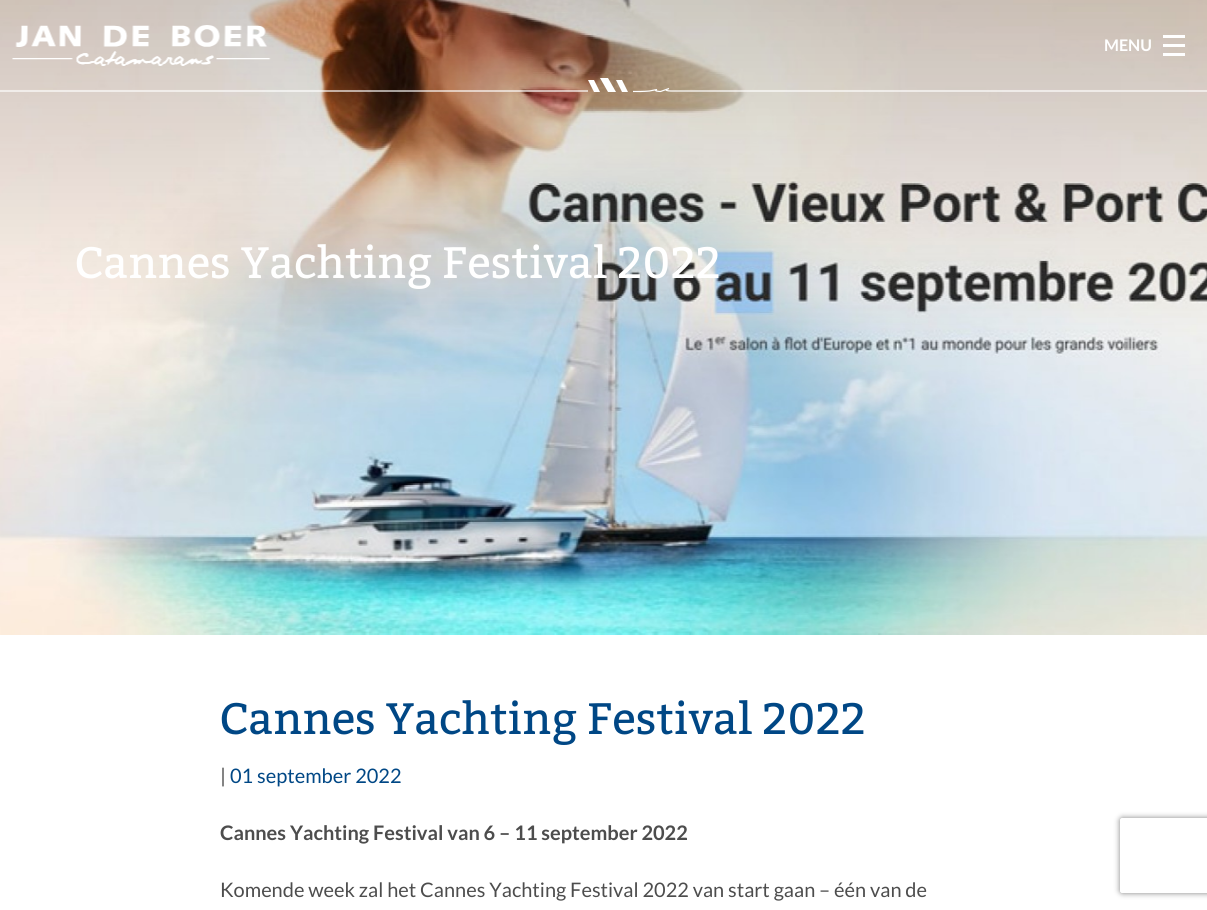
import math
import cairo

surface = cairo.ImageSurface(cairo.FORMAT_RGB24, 1207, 910)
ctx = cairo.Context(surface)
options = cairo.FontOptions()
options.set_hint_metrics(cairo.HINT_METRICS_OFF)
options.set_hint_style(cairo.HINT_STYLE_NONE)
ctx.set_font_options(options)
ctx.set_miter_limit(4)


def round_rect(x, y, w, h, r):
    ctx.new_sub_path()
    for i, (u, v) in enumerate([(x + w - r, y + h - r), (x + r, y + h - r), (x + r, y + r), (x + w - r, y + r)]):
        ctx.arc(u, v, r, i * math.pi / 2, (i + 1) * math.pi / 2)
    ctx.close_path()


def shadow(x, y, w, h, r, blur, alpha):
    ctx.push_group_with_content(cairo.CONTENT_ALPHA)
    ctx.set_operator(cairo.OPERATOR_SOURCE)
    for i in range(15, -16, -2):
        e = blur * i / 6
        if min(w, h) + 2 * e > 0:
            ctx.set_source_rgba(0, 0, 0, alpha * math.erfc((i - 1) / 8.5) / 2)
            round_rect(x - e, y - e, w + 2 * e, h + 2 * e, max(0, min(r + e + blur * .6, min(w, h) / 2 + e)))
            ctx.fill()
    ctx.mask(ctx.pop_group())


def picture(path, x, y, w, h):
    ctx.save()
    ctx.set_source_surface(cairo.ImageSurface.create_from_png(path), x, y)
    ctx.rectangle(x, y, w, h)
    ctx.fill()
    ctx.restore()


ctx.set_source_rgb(1, 1, 1)
ctx.paint()
picture("img2.png", 0, 0, 1207, 635)
picture("img1.png", 12, 25, 259, 41)
ctx.select_font_face("Lato", cairo.FONT_SLANT_NORMAL, cairo.FONT_WEIGHT_BOLD)
ctx.set_font_size(16)
ctx.set_source_rgb(1, 1, 1)
ctx.move_to(1104, 51)
ctx.show_text("MENU")
ctx.rectangle(1163, 53, 22, 3)
ctx.fill()
ctx.rectangle(1163, 44, 22, 3)
ctx.fill()
ctx.rectangle(1163, 35, 22, 3)
ctx.fill()
ctx.new_path()
ctx.move_to(588, 91)
ctx.line_to(-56, 91)
ctx.set_line_width(1.2)
ctx.stroke()
ctx.new_path()
ctx.move_to(600, 92)
ctx.line_to(594, 92)
ctx.line_to(588, 80)
ctx.line_to(594, 80)
ctx.close_path()
ctx.move_to(616, 92)
ctx.line_to(608, 92)
ctx.line_to(600, 78)
ctx.line_to(608, 78)
ctx.close_path()
ctx.move_to(628, 92)
ctx.line_to(622, 92)
ctx.line_to(616, 80)
ctx.line_to(622, 80)
ctx.close_path()
ctx.fill()
ctx.new_path()
ctx.move_to(633, 91.5)
ctx.curve_to(638.5, 91.5, 644, 91.5, 649.5, 91)
ctx.line_to(657, 89.5)
ctx.curve_to(652.5, 91, 659.5, 91.5, 660.5, 91.5)
ctx.line_to(669, 88.5)
ctx.curve_to(663, 90.5, 668, 91, 671, 91)
ctx.line_to(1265, 91)
ctx.stroke()
ctx.select_font_face("Bitter")
ctx.set_font_size(44)
ctx.move_to(75, 278)
ctx.show_text("Cannes Yachting Festival 2022")
ctx.set_source_rgb(0, 0.278, 0.522)
ctx.move_to(220, 734)
ctx.show_text("Cannes Yachting Festival 2022")
ctx.select_font_face("Lato")
ctx.set_font_size(20)
ctx.set_source_rgb(0.302, 0.302, 0.302)
ctx.move_to(220, 783)
ctx.show_text("|")
ctx.set_source_rgb(0, 0.278, 0.522)
ctx.move_to(230, 783)
ctx.show_text("01 september 2022")
ctx.select_font_face("Lato", cairo.FONT_SLANT_NORMAL, cairo.FONT_WEIGHT_BOLD)
ctx.set_source_rgb(0.302, 0.302, 0.302)
ctx.move_to(220, 840)
ctx.show_text("Cannes Yachting Festival van 6 – 11 september 2022")
ctx.select_font_face("Lato")
ctx.move_to(220, 897)
ctx.show_text("Komende week zal het Cannes Yachting Festival 2022 van start gaan – één van de")
ctx.save()
ctx.set_fill_rule(cairo.FILL_RULE_EVEN_ODD)
ctx.new_path()
ctx.move_to(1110, 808)
ctx.line_to(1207, 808)
ctx.line_to(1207, 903)
ctx.line_to(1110, 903)
ctx.close_path()
ctx.move_to(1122.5, 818)
ctx.line_to(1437.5, 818)
ctx.curve_to(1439, 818, 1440, 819, 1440, 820.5)
ctx.line_to(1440, 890.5)
ctx.curve_to(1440, 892, 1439, 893, 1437.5, 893)
ctx.line_to(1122.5, 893)
ctx.curve_to(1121, 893, 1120, 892, 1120, 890.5)
ctx.line_to(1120, 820.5)
ctx.curve_to(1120, 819, 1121, 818, 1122.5, 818)
ctx.close_path()
ctx.clip()
ctx.set_source_rgb(0.502, 0.502, 0.502)
shadow(1120, 818, 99, 75, 2.5, 3, 1)
ctx.restore()
surface.write_to_png("page.png")
